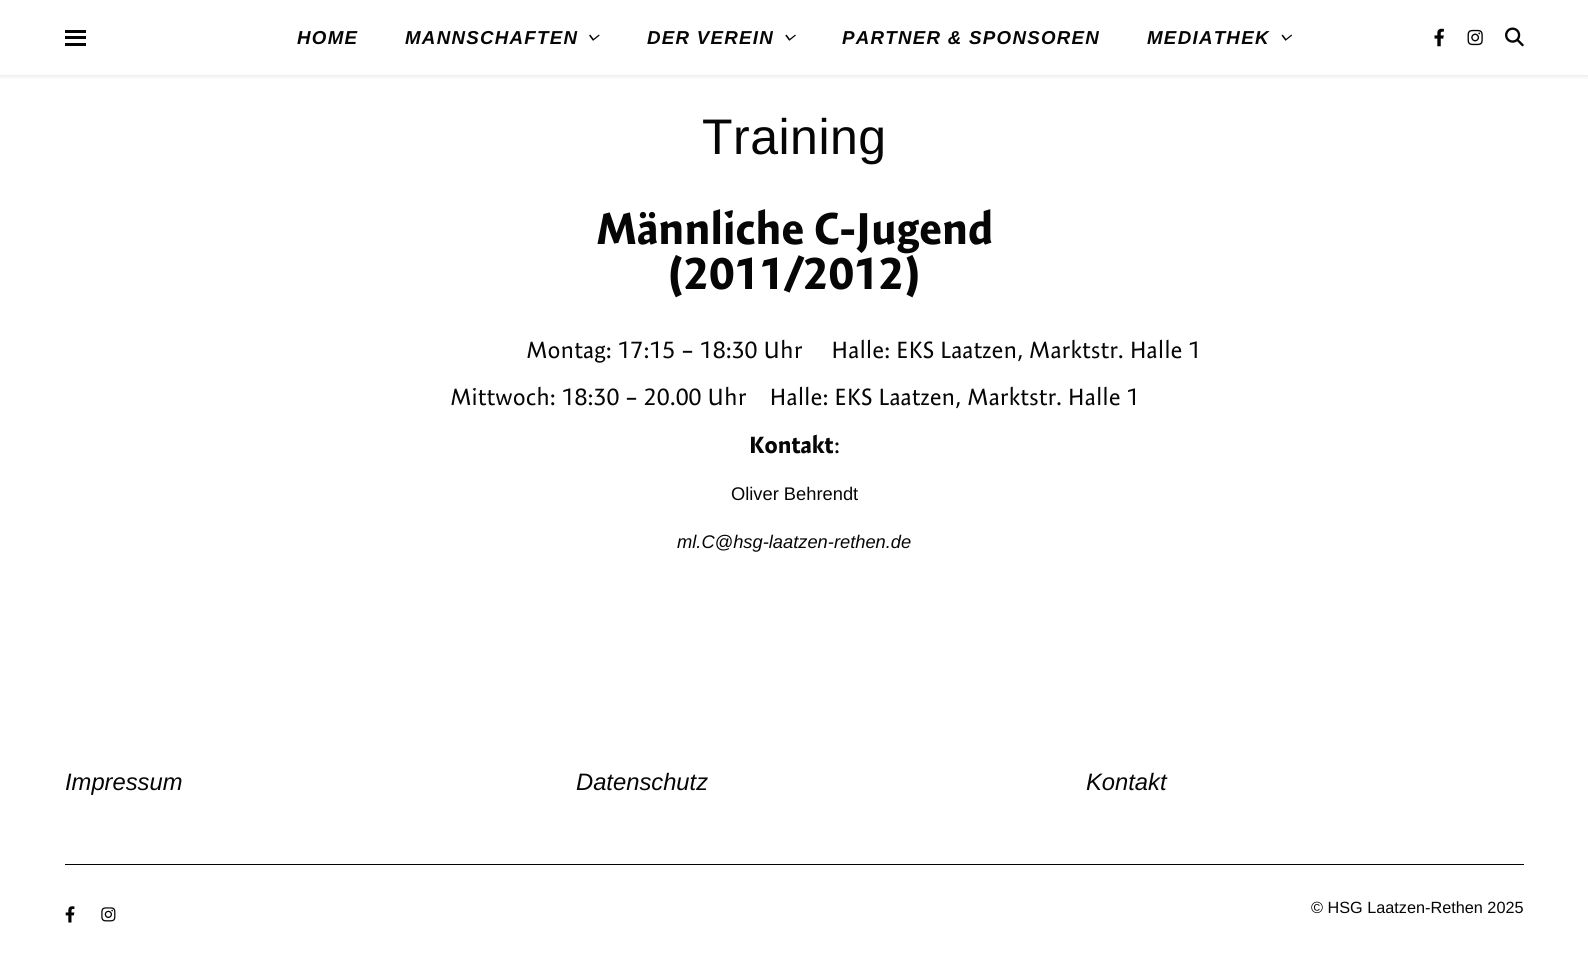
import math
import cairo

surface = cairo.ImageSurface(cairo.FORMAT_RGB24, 1588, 959)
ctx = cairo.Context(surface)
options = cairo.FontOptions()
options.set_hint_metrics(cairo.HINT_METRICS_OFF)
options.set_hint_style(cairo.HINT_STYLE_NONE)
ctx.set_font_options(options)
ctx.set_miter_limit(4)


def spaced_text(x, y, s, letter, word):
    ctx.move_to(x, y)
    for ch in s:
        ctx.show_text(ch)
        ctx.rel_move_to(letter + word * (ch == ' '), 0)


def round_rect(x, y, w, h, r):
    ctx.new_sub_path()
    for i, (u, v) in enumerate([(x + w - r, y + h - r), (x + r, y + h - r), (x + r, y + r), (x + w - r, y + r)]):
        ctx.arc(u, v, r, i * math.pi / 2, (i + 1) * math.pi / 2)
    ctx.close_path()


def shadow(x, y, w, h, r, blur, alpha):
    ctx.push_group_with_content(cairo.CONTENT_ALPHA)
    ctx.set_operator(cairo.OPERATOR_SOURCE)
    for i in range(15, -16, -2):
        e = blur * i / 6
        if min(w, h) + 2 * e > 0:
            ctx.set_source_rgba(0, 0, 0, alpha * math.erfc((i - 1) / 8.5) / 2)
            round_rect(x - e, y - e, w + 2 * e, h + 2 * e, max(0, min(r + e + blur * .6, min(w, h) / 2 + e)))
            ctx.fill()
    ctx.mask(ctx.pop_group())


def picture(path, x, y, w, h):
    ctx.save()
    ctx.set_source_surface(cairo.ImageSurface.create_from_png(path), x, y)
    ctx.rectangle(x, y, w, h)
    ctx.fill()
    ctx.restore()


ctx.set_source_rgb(1, 1, 1)
ctx.paint()
ctx.save()
ctx.rectangle(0, 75, 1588, 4)
ctx.clip()
ctx.set_source_rgb(0.012, 0.012, 0.012)
shadow(0, 1, 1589, 75, 0, 3, 0.1)
ctx.restore()
ctx.set_source_rgb(0.012, 0.012, 0.012)
ctx.rectangle(65, 30, 21, 3)
ctx.fill()
ctx.rectangle(65, 36, 21, 3)
ctx.fill()
ctx.rectangle(65, 43, 21, 3)
ctx.fill()
ctx.select_font_face("Liberation Sans", cairo.FONT_SLANT_ITALIC, cairo.FONT_WEIGHT_BOLD)
ctx.set_font_size(18.75)
ctx.set_source_rgb(0.024, 0.024, 0.024)
spaced_text(297, 44, "HOME", 1.25, 0)
spaced_text(405, 44, "MANNSCHAFTEN", 1.25, 0)
picture("img1.png", 589, 34, 11, 7)
spaced_text(647, 44, "DER VEREIN", 1.25, 0)
picture("img2.png", 785, 34, 11, 7)
spaced_text(842, 44, "PARTNER & SPONSOREN", 1.25, 0)
spaced_text(1147, 44, "MEDIATHEK", 1.25, 0)
picture("img3.png", 1281, 34, 11, 7)
picture("img4.png", 1434, 28, 10, 19)
picture("img5.png", 1467, 29, 16, 17)
picture("img6.png", 1505, 27, 19, 20)
ctx.select_font_face("Liberation Sans")
ctx.set_font_size(50)
spaced_text(702, 154, "Training", 0.5, 0)
ctx.select_font_face("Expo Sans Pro", cairo.FONT_SLANT_NORMAL, cairo.FONT_WEIGHT_BOLD)
ctx.set_font_size(45)
ctx.move_to(596, 244)
ctx.show_text("Männliche C-Jugend")
ctx.move_to(667, 289)
ctx.show_text("(2011/2012)")
ctx.select_font_face("Expo Sans Pro")
ctx.set_font_size(23.75)
ctx.move_to(526, 358)
ctx.show_text("Montag: 17:15 – 18:30 Uhr     Halle: EKS Laatzen, Marktstr. Halle 1")
ctx.move_to(450, 405)
ctx.show_text("Mittwoch: 18:30 – 20.00 Uhr    Halle: EKS Laatzen, Marktstr. Halle 1")
ctx.select_font_face("Expo Sans Pro", cairo.FONT_SLANT_NORMAL, cairo.FONT_WEIGHT_BOLD)
ctx.move_to(749, 453)
ctx.show_text("Kontakt")
ctx.select_font_face("Expo Sans Pro")
ctx.move_to(834, 453)
ctx.show_text(":")
ctx.select_font_face("Liberation Sans")
ctx.set_font_size(18.3)
ctx.move_to(731, 500)
ctx.show_text("Oliver Behrendt")
ctx.select_font_face("Liberation Sans", cairo.FONT_SLANT_ITALIC)
ctx.move_to(677, 548)
ctx.show_text("ml.C@hsg-laatzen-rethen.de")
ctx.set_source_rgb(0.012, 0.012, 0.012)
ctx.rectangle(65, 864, 1459, 1)
ctx.fill()
ctx.set_font_size(23.75)
ctx.set_source_rgb(0.024, 0.024, 0.024)
ctx.move_to(65, 790)
ctx.show_text("Impressum")
ctx.move_to(576, 790)
ctx.show_text("Datenschutz")
ctx.move_to(1086, 790)
ctx.show_text("Kontakt")
picture("img7.png", 65, 906, 10, 17)
picture("img8.png", 101, 907, 15, 15)
ctx.select_font_face("Liberation Sans")
ctx.set_font_size(16.25)
ctx.move_to(1311, 913)
ctx.show_text("© HSG Laatzen-Rethen 2025")
surface.write_to_png("page.png")
